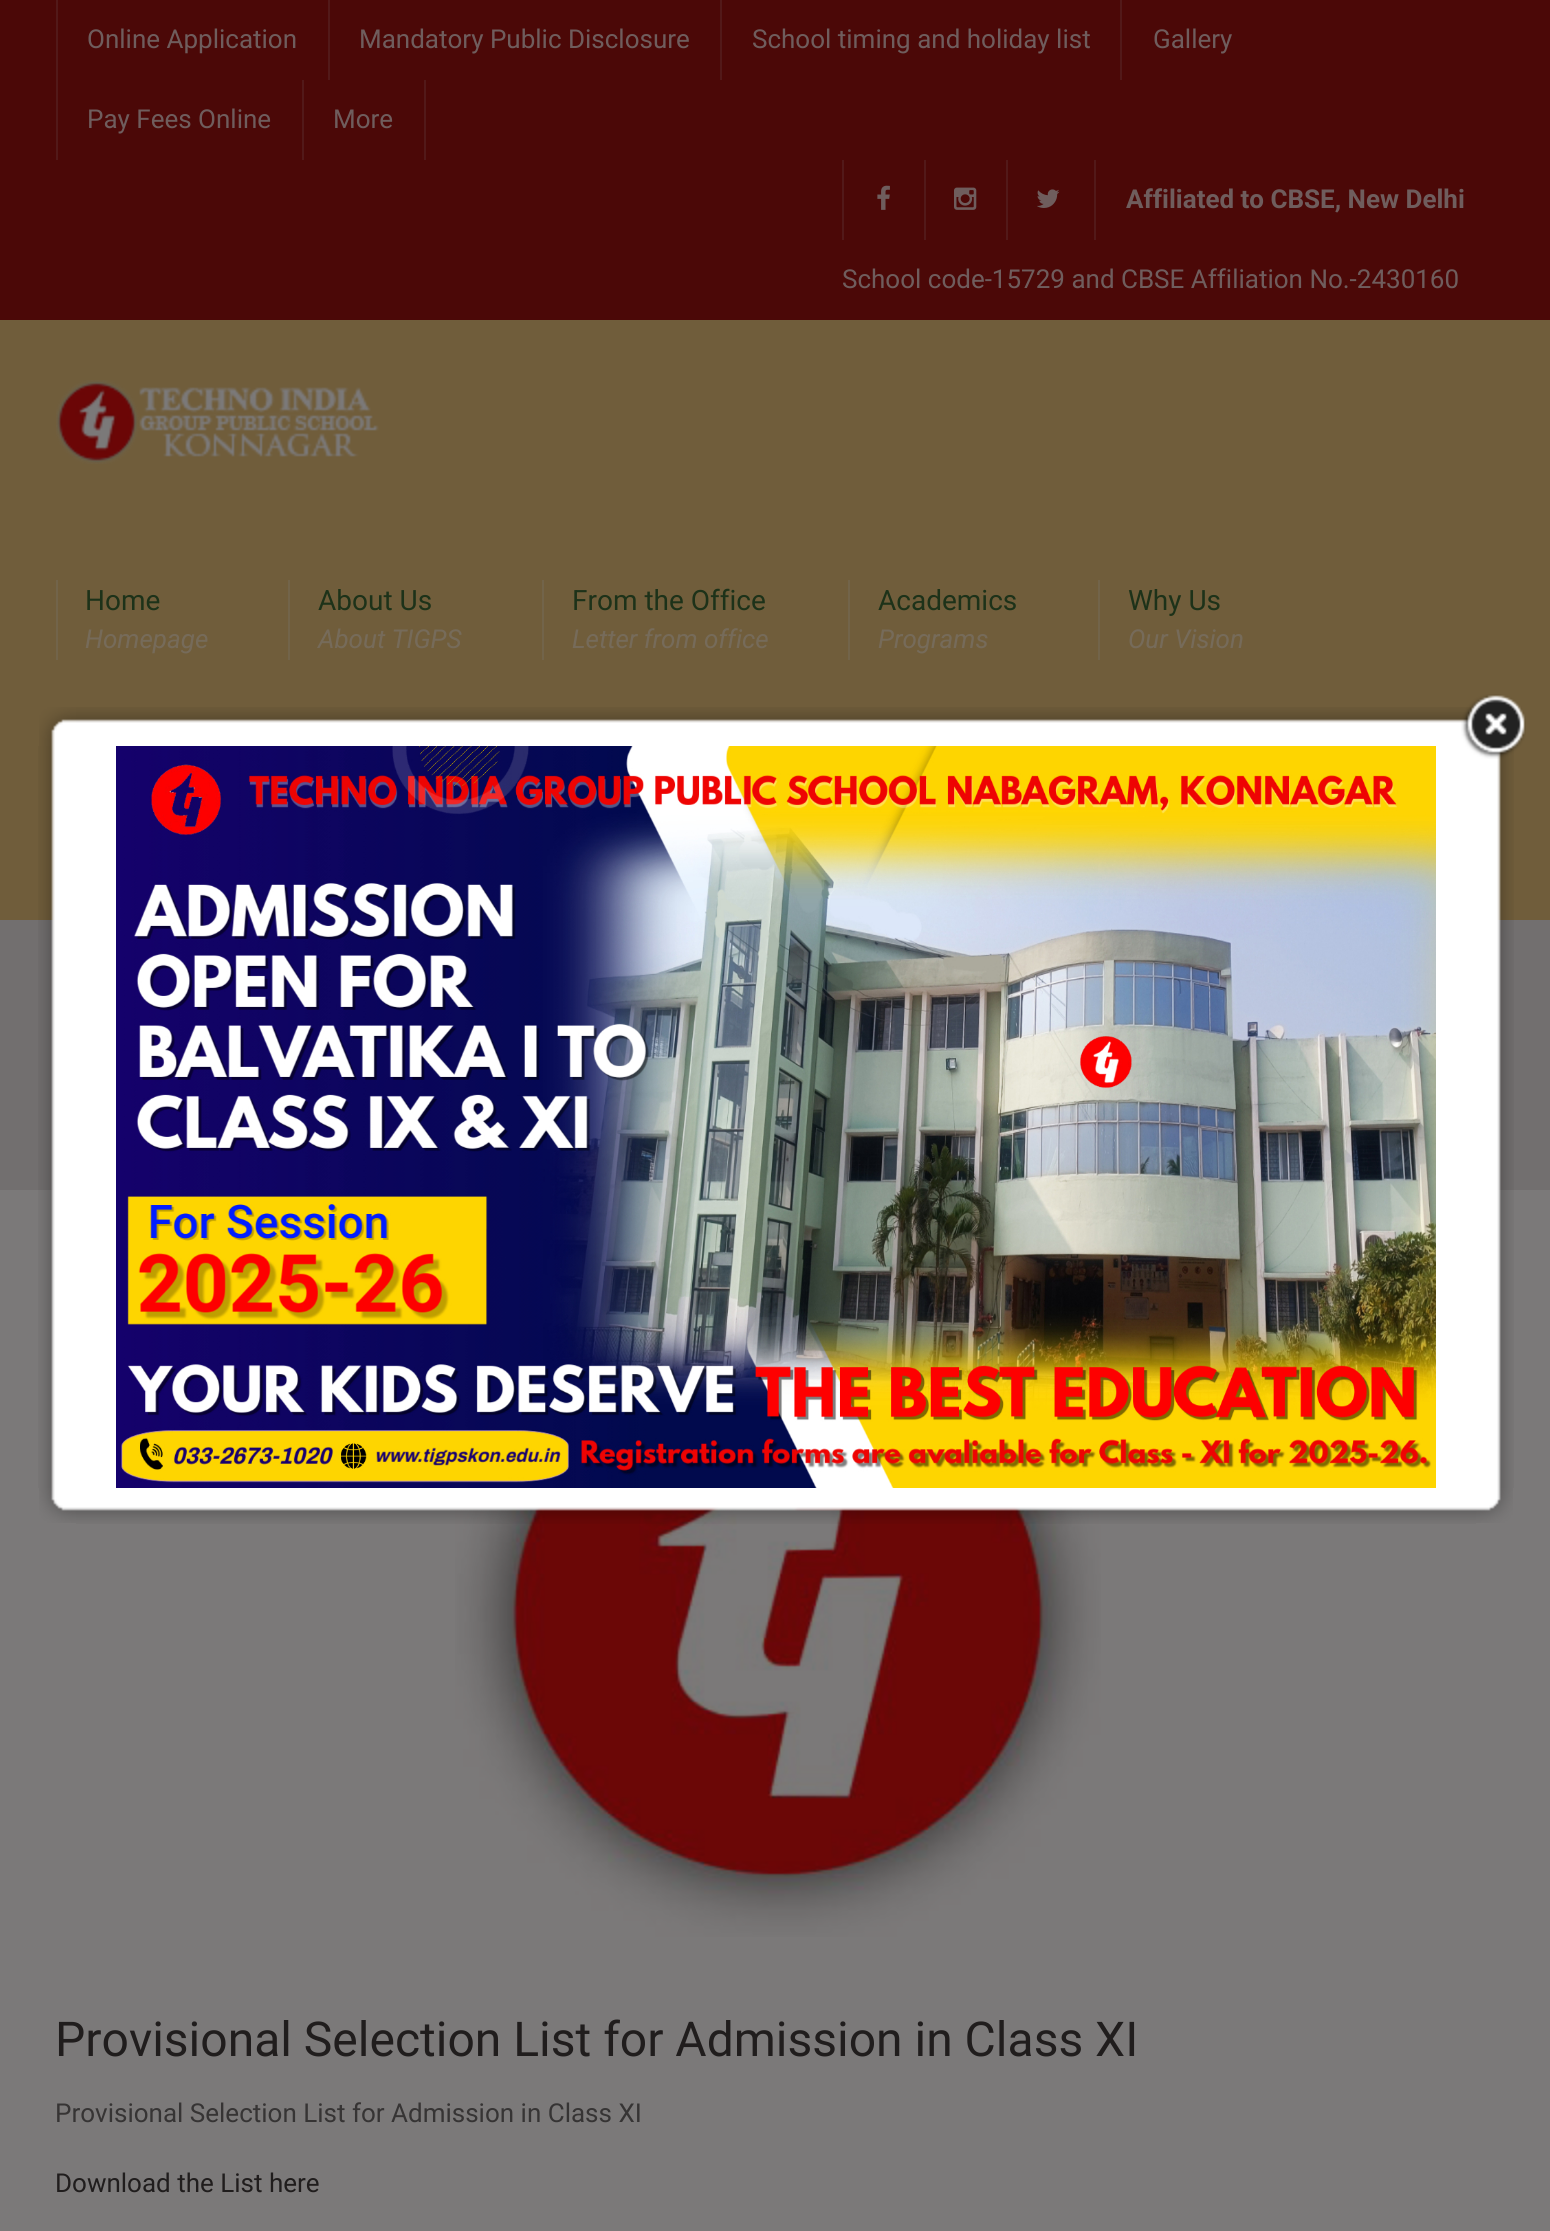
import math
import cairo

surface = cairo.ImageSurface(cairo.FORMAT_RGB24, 1550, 2231)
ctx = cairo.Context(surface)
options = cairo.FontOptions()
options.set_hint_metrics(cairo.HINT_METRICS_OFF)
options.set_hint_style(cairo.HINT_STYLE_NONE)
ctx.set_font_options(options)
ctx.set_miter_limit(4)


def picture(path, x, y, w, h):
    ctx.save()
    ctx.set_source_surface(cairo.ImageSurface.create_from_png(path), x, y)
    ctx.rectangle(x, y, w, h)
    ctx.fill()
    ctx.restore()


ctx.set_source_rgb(0.482, 0.475, 0.475)
ctx.paint()
ctx.set_source_rgb(0.294, 0.035, 0.031)
ctx.rectangle(0, 0, 1550, 320)
ctx.fill()
ctx.set_source_rgb(0.322, 0.098, 0.098)
ctx.rectangle(56, 0, 2, 160)
ctx.fill()
ctx.select_font_face("Roboto")
ctx.set_font_size(26)
ctx.set_source_rgb(0.435, 0.365, 0.365)
ctx.move_to(87, 48)
ctx.show_text("Online Application")
ctx.set_source_rgb(0.322, 0.098, 0.098)
ctx.rectangle(328, 0, 2, 80)
ctx.fill()
ctx.set_source_rgb(0.435, 0.365, 0.365)
ctx.move_to(359, 48)
ctx.show_text("Mandatory Public Disclosure")
ctx.set_source_rgb(0.322, 0.098, 0.098)
ctx.rectangle(720, 0, 2, 80)
ctx.fill()
ctx.set_source_rgb(0.435, 0.365, 0.365)
ctx.move_to(752, 48)
ctx.show_text("School timing and holiday list")
ctx.set_source_rgb(0.322, 0.098, 0.098)
ctx.rectangle(1120, 0, 2, 80)
ctx.fill()
ctx.set_source_rgb(0.435, 0.365, 0.365)
ctx.move_to(1153, 48)
ctx.show_text("Gallery")
ctx.move_to(87, 128)
ctx.show_text("Pay Fees Online")
ctx.set_source_rgb(0.322, 0.098, 0.098)
ctx.rectangle(424, 80, 2, 80)
ctx.fill()
ctx.rectangle(302, 80, 2, 80)
ctx.fill()
ctx.set_source_rgb(0.435, 0.365, 0.365)
ctx.move_to(333, 128)
ctx.show_text("More")
ctx.set_source_rgb(0.322, 0.098, 0.098)
ctx.rectangle(842, 160, 2, 80)
ctx.fill()
picture("img1.png", 877, 185, 13, 25)
ctx.rectangle(924, 160, 2, 80)
ctx.fill()
picture("img2.png", 954, 187, 23, 23)
ctx.rectangle(1006, 160, 2, 80)
ctx.fill()
picture("img3.png", 1037, 189, 23, 19)
ctx.rectangle(1094, 160, 2, 80)
ctx.fill()
ctx.select_font_face("Roboto", cairo.FONT_SLANT_NORMAL, cairo.FONT_WEIGHT_BOLD)
ctx.set_source_rgb(0.435, 0.365, 0.365)
ctx.move_to(1126, 208)
ctx.show_text("Affiliated to CBSE, New Delhi")
ctx.select_font_face("Roboto")
ctx.move_to(842, 288)
ctx.show_text("School code-15729 and CBSE Affiliation No.-2430160")
ctx.set_source_rgb(0.439, 0.365, 0.231)
ctx.rectangle(0, 320, 1550, 600)
ctx.fill()
picture("img4.png", 56, 380, 323, 84)
ctx.set_source_rgb(0.447, 0.392, 0.29)
ctx.rectangle(56, 580, 2, 80)
ctx.fill()
ctx.set_font_size(28)
ctx.set_source_rgb(0.114, 0.196, 0.098)
ctx.move_to(85, 610)
ctx.show_text("Home")
ctx.select_font_face("Roboto", cairo.FONT_SLANT_ITALIC)
ctx.set_font_size(26)
ctx.set_source_rgb(0.463, 0.42, 0.353)
ctx.move_to(85, 648)
ctx.show_text("Homepage")
ctx.set_source_rgb(0.447, 0.392, 0.29)
ctx.rectangle(288, 580, 2, 80)
ctx.fill()
ctx.select_font_face("Roboto")
ctx.set_font_size(28)
ctx.set_source_rgb(0.114, 0.196, 0.098)
ctx.move_to(318, 610)
ctx.show_text("About Us")
ctx.select_font_face("Roboto", cairo.FONT_SLANT_ITALIC)
ctx.set_font_size(26)
ctx.set_source_rgb(0.463, 0.42, 0.353)
ctx.move_to(318, 648)
ctx.show_text("About TIGPS")
ctx.set_source_rgb(0.447, 0.392, 0.29)
ctx.rectangle(542, 580, 2, 80)
ctx.fill()
ctx.select_font_face("Roboto")
ctx.set_font_size(28)
ctx.set_source_rgb(0.114, 0.196, 0.098)
ctx.move_to(572, 610)
ctx.show_text("From the Office")
ctx.select_font_face("Roboto", cairo.FONT_SLANT_ITALIC)
ctx.set_font_size(26)
ctx.set_source_rgb(0.463, 0.42, 0.353)
ctx.move_to(572, 648)
ctx.show_text("Letter from office")
ctx.set_source_rgb(0.447, 0.392, 0.29)
ctx.rectangle(848, 580, 2, 80)
ctx.fill()
ctx.select_font_face("Roboto")
ctx.set_font_size(28)
ctx.set_source_rgb(0.114, 0.196, 0.098)
ctx.move_to(878, 610)
ctx.show_text("Academics")
ctx.select_font_face("Roboto", cairo.FONT_SLANT_ITALIC)
ctx.set_font_size(26)
ctx.set_source_rgb(0.463, 0.42, 0.353)
ctx.move_to(878, 648)
ctx.show_text("Programs")
ctx.set_source_rgb(0.447, 0.392, 0.29)
ctx.rectangle(1098, 580, 2, 80)
ctx.fill()
ctx.select_font_face("Roboto")
ctx.set_font_size(28)
ctx.set_source_rgb(0.114, 0.196, 0.098)
ctx.move_to(1128, 610)
ctx.show_text("Why Us")
ctx.select_font_face("Roboto", cairo.FONT_SLANT_ITALIC)
ctx.set_font_size(26)
ctx.set_source_rgb(0.463, 0.42, 0.353)
ctx.move_to(1128, 648)
ctx.show_text("Our Vision")
ctx.set_source_rgb(0.447, 0.435, 0.435)
ctx.rectangle(0, 920, 1550, 270)
ctx.fill()
picture("img5.png", 455, 1507, 646, 430)
ctx.select_font_face("Roboto")
ctx.set_font_size(48)
ctx.set_source_rgb(0.125, 0.114, 0.114)
ctx.move_to(55, 2056)
ctx.show_text("Provisional Selection List for Admission in Class XI")
ctx.set_font_size(26)
ctx.set_source_rgb(0.212, 0.204, 0.204)
ctx.move_to(55, 2122)
ctx.show_text("Provisional Selection List for Admission in Class XI")
ctx.set_source_rgb(0.125, 0.114, 0.114)
ctx.move_to(55, 2192)
ctx.show_text("Download the List here")
picture("img6.png", 38, 746, 38, 742)
ctx.set_source_rgb(1, 1, 1)
ctx.rectangle(76, 746, 1400, 742)
ctx.fill()
picture("img9.png", 1476, 746, 38, 742)
picture("img11.png", 76, 707, 1400, 39)
picture("img12.png", 1476, 707, 37, 39)
picture("img7.png", 1461, 694, 65, 65)
picture("img8.png", 116, 746, 1320, 742)
picture("img10.png", 39, 707, 37, 39)
picture("img13.png", 39, 1488, 37, 35)
picture("img14.png", 76, 1488, 1400, 36)
picture("img15.png", 1476, 1488, 37, 35)
surface.write_to_png("page.png")
